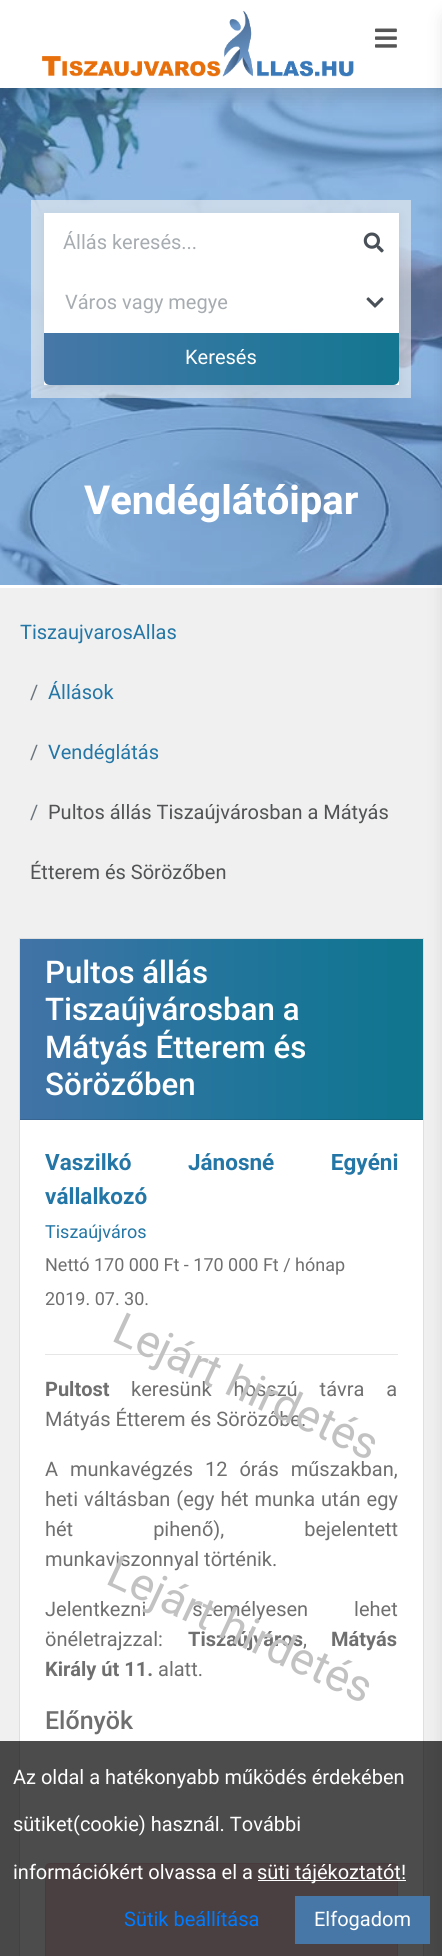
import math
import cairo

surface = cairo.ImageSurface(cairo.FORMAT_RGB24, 442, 1956)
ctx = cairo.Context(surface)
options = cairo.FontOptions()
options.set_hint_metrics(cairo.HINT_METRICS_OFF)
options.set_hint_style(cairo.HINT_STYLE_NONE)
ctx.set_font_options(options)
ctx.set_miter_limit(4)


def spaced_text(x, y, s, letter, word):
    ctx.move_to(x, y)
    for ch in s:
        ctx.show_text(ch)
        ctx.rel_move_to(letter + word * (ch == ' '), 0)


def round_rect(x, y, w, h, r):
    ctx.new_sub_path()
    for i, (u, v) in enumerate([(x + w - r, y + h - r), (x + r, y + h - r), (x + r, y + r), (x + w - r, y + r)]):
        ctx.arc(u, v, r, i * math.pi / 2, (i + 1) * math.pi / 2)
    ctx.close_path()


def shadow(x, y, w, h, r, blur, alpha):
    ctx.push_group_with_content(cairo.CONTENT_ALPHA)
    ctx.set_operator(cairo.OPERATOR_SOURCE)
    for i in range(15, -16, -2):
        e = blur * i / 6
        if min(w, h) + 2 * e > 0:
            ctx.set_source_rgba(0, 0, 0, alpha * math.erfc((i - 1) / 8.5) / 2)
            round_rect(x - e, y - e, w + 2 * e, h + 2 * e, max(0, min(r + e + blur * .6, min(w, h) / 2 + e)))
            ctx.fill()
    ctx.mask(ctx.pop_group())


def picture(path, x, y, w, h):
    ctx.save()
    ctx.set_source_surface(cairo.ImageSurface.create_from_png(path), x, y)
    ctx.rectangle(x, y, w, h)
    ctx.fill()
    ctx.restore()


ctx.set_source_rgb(0.941, 0.941, 0.941)
ctx.paint()
picture("img3.png", 0, 88, 442, 497)
ctx.set_source_rgb(0, 0, 0)
shadow(0, 10, 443, 88, 0, 10, 0.15)
ctx.set_source_rgb(1, 1, 1)
ctx.rectangle(0, 0, 442, 88)
ctx.fill()
picture("img1.png", 42, 10, 312, 67)
picture("img2.png", 375, 28, 22, 20)
ctx.rectangle(0, 585, 442, 3)
ctx.fill()
ctx.rectangle(20, 1120, 403, 836)
ctx.fill()
ctx.rectangle(19.5, 938.5, 404, 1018)
ctx.set_source_rgb(0.875, 0.875, 0.875)
ctx.set_line_width(1)
ctx.stroke()
gradient = cairo.LinearGradient(20, 1029, 423, 1029)
gradient.add_color_stop_rgba(0, 0.259, 0.451, 0.651, 1)
gradient.add_color_stop_rgba(0.25, 0.196, 0.455, 0.635, 1)
gradient.add_color_stop_rgba(0.5, 0.137, 0.459, 0.612, 1)
gradient.add_color_stop_rgba(0.75, 0.09, 0.459, 0.584, 1)
gradient.add_color_stop_rgba(1, 0.063, 0.459, 0.557, 1)
ctx.set_source(gradient)
ctx.rectangle(20, 939, 403, 180)
ctx.fill()
gradient = cairo.LinearGradient(20, 1029, 423, 1029)
gradient.add_color_stop_rgba(0, 0.227, 0.396, 0.573, 1)
gradient.add_color_stop_rgba(0.25, 0.173, 0.4, 0.561, 1)
gradient.add_color_stop_rgba(0.5, 0.122, 0.404, 0.537, 1)
gradient.add_color_stop_rgba(0.75, 0.078, 0.404, 0.514, 1)
gradient.add_color_stop_rgba(1, 0.055, 0.404, 0.49, 1)
ctx.set_source(gradient)
ctx.rectangle(20, 1119, 403, 1)
ctx.fill()
ctx.set_source_rgb(0, 0, 0)
shadow(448, 19, 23, 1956, 0, 9.5, 0.18)
ctx.set_source_rgba(0.941, 0.941, 0.941, 0.6)
ctx.rectangle(31, 200, 380, 198)
ctx.fill()
ctx.set_source_rgb(0, 0, 0)
shadow(44, 216, 355, 173, 0, 6, 0.07)
ctx.set_source_rgb(1, 1, 1)
ctx.rectangle(44, 213, 355, 172)
ctx.fill()
ctx.save()
ctx.rectangle(63, 231, 281, 24)
ctx.clip()
ctx.select_font_face("Roboto")
ctx.set_font_size(20)
ctx.set_source_rgb(0.655, 0.675, 0.694)
ctx.move_to(63, 249)
ctx.show_text("Állás keresés...")
ctx.restore()
picture("img4.png", 363, 232, 21, 21)
ctx.select_font_face("Roboto")
ctx.set_font_size(20)
ctx.set_source_rgb(0.655, 0.675, 0.694)
ctx.move_to(65, 309)
ctx.show_text("Város vagy megye")
picture("img5.png", 366, 297, 18, 11)
gradient = cairo.LinearGradient(44, 359, 399, 359)
gradient.add_color_stop_rgba(0, 0.278, 0.467, 0.655, 1)
gradient.add_color_stop_rgba(0.25, 0.224, 0.467, 0.639, 1)
gradient.add_color_stop_rgba(0.5, 0.169, 0.467, 0.616, 1)
gradient.add_color_stop_rgba(0.75, 0.118, 0.467, 0.592, 1)
gradient.add_color_stop_rgba(1, 0.078, 0.463, 0.565, 1)
ctx.set_source(gradient)
ctx.new_path()
ctx.move_to(44, 333)
ctx.line_to(399, 333)
ctx.line_to(399, 379)
ctx.curve_to(399, 382.5, 396.5, 385, 393, 385)
ctx.line_to(50, 385)
ctx.curve_to(46.5, 385, 44, 382.5, 44, 379)
ctx.close_path()
ctx.fill()
ctx.set_source_rgb(1, 1, 1)
ctx.move_to(185, 364)
ctx.show_text("Keresés")
ctx.select_font_face("Roboto", cairo.FONT_SLANT_NORMAL, cairo.FONT_WEIGHT_BOLD)
ctx.set_font_size(40)
ctx.move_to(84, 514)
ctx.show_text("Vendéglátóipar")
ctx.select_font_face("Roboto")
ctx.set_font_size(20)
ctx.set_source_rgb(0.137, 0.463, 0.647)
ctx.move_to(20, 639)
ctx.show_text("TiszaujvarosAllas")
ctx.set_source_rgb(0.424, 0.459, 0.49)
ctx.move_to(30, 699)
ctx.show_text("/")
ctx.set_source_rgb(0.137, 0.463, 0.647)
ctx.move_to(48, 699)
ctx.show_text("Állások")
ctx.set_source_rgb(0.424, 0.459, 0.49)
ctx.move_to(30, 759)
ctx.show_text("/")
ctx.set_source_rgb(0.137, 0.463, 0.647)
ctx.move_to(48, 759)
ctx.show_text("Vendéglátás")
ctx.set_source_rgb(0.424, 0.459, 0.49)
ctx.move_to(30, 819)
ctx.show_text("/")
ctx.set_source_rgb(0.318, 0.325, 0.329)
ctx.move_to(48, 819)
ctx.show_text("Pultos állás Tiszaújvárosban a Mátyás")
ctx.move_to(30, 879)
ctx.show_text("Étterem és Sörözőben")
ctx.select_font_face("Roboto Medium")
ctx.set_font_size(31.25)
ctx.set_source_rgb(1, 1, 1)
ctx.move_to(45, 983)
ctx.show_text("Pultos állás")
ctx.move_to(45, 1020)
ctx.show_text("Tiszaújvárosban a")
ctx.move_to(45, 1058)
ctx.show_text("Mátyás Étterem és")
ctx.move_to(45, 1095)
ctx.show_text("Sörözőben")
ctx.select_font_face("Roboto", cairo.FONT_SLANT_NORMAL, cairo.FONT_WEIGHT_BOLD)
ctx.set_font_size(22.5)
ctx.set_source_rgb(0.137, 0.463, 0.647)
spaced_text(45, 1170, "Vaszilkó Jánosné Egyéni", 0, 51)
ctx.move_to(45, 1204)
ctx.show_text("vállalkozó")
ctx.select_font_face("Roboto")
ctx.set_font_size(18)
ctx.move_to(45, 1238)
ctx.show_text("Tiszaújváros")
ctx.set_source_rgb(0.435, 0.435, 0.435)
ctx.move_to(45, 1271)
ctx.show_text("Nettó 170 000 Ft - 170 000 Ft / hónap")
ctx.move_to(45, 1305)
ctx.show_text("2019. 07. 30.")
ctx.set_source_rgb(0.902, 0.902, 0.902)
ctx.rectangle(45, 1354, 353, 1)
ctx.fill()
ctx.select_font_face("Roboto", cairo.FONT_SLANT_NORMAL, cairo.FONT_WEIGHT_BOLD)
ctx.set_font_size(20)
ctx.set_source_rgb(0.435, 0.435, 0.435)
ctx.move_to(45, 1396)
ctx.show_text("Pultost")
ctx.select_font_face("Roboto")
spaced_text(131, 1396, "keresünk hosszú távra a", 0, 17)
ctx.move_to(45, 1426)
ctx.show_text("Mátyás Étterem és Sörözőbe.")
spaced_text(45, 1476, "A munkavégzés 12 órás műszakban,", 0, 7)
spaced_text(45, 1506, "heti váltásban (egy hét munka után egy", 0, 1)
spaced_text(45, 1536, "hét pihenő), bejelentett", 0, 75)
ctx.move_to(45, 1566)
ctx.show_text("munkaviszonnyal történik.")
spaced_text(45, 1616, "Jelentkezni személyesen lehet", 0, 41)
ctx.move_to(45, 1646)
ctx.show_text("önéletrajzzal:")
ctx.select_font_face("Roboto", cairo.FONT_SLANT_NORMAL, cairo.FONT_WEIGHT_BOLD)
ctx.move_to(188, 1646)
ctx.show_text("Tiszaújváros")
ctx.select_font_face("Roboto")
ctx.move_to(303, 1646)
ctx.show_text(",")
ctx.select_font_face("Roboto", cairo.FONT_SLANT_NORMAL, cairo.FONT_WEIGHT_BOLD)
ctx.move_to(331, 1646)
ctx.show_text("Mátyás")
ctx.move_to(45, 1676)
ctx.show_text("Király út 11.")
ctx.select_font_face("Roboto")
ctx.move_to(158, 1676)
ctx.show_text("alatt.")
ctx.set_font_size(45)
ctx.set_source_rgb(0.761, 0.761, 0.761)
ctx.save()
ctx.translate(104, 1583)
ctx.rotate(25 * math.pi / 180)
ctx.move_to(0, 0)
ctx.show_text("Lejárt hirdetés")
ctx.restore()
ctx.select_font_face("Roboto Medium")
ctx.set_font_size(25)
ctx.set_source_rgb(0.435, 0.435, 0.435)
ctx.move_to(45, 1729)
ctx.show_text("Előnyök")
ctx.set_source_rgb(0.973, 0.843, 0.855)
round_rect(45.5, 1863.5, 352, 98, 4.5)
ctx.fill_preserve()
ctx.set_source_rgb(0.961, 0.776, 0.796)
ctx.stroke()
ctx.select_font_face("Roboto")
ctx.set_font_size(45)
ctx.set_source_rgb(0.761, 0.761, 0.761)
ctx.save()
ctx.translate(110, 1340)
ctx.rotate(25 * math.pi / 180)
ctx.move_to(0, 0)
ctx.show_text("Lejárt hirdetés")
ctx.restore()
ctx.set_source_rgba(0, 0, 0, 0.7)
ctx.rectangle(0, 1741, 442, 215)
ctx.fill()
ctx.set_font_size(20)
ctx.set_source_rgb(1, 1, 1)
ctx.move_to(13, 1784)
ctx.show_text("Az oldal a hatékonyabb működés érdekében")
ctx.move_to(13, 1831)
ctx.show_text("sütiket(cookie) használ. További")
ctx.move_to(13, 1879)
ctx.show_text("információkért olvassa el a")
ctx.rectangle(258, 1880, 148, 1)
ctx.fill()
ctx.move_to(257, 1879)
ctx.show_text("süti tájékoztatót!")
ctx.set_source_rgb(0, 0.482, 1)
ctx.move_to(124, 1926)
ctx.show_text("Sütik beállítása")
ctx.set_source_rgb(0.278, 0.467, 0.655)
ctx.rectangle(295, 1896, 135, 48)
ctx.fill()
ctx.set_source_rgb(1, 1, 1)
ctx.move_to(314, 1926)
ctx.show_text("Elfogadom")
surface.write_to_png("page.png")
